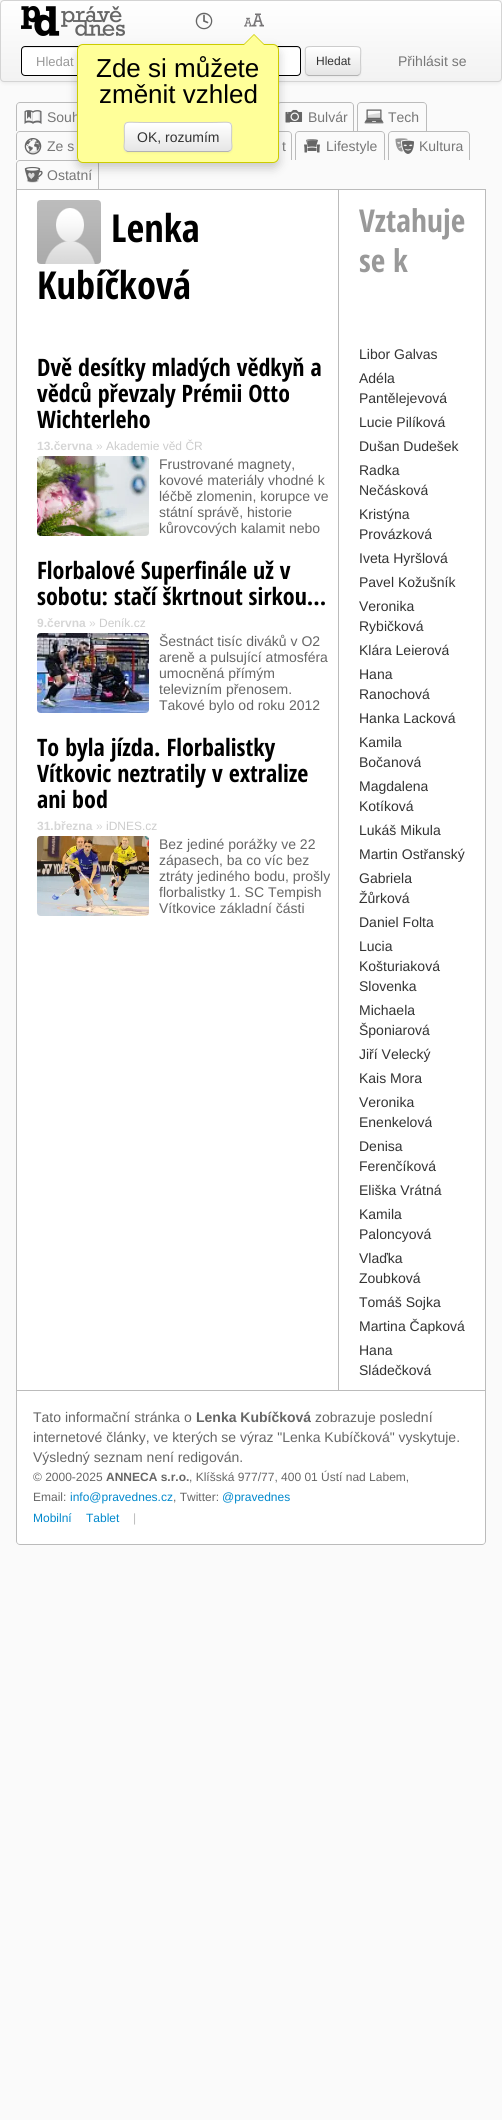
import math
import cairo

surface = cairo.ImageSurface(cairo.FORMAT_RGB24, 502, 2120)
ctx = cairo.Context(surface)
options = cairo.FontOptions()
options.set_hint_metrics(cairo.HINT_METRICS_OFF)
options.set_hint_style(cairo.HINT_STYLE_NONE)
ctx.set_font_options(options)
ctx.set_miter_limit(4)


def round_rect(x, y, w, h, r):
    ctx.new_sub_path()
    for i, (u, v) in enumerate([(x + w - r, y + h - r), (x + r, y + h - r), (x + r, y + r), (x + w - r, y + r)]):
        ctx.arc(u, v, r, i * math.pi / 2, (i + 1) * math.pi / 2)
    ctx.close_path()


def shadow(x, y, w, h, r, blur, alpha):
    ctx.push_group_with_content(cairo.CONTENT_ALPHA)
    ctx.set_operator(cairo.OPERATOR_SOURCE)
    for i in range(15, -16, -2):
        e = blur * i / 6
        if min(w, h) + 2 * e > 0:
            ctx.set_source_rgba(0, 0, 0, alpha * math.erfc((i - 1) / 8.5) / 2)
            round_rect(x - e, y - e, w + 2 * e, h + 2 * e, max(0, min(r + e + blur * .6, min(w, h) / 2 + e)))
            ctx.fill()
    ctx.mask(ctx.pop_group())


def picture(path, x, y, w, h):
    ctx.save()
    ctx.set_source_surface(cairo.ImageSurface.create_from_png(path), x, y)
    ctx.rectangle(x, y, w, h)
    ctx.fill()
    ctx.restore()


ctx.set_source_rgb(0.98, 0.98, 0.98)
ctx.paint()
ctx.set_source_rgb(0, 0, 0)
shadow(0, 1, 502, 82, 4, 2, 0.07)
ctx.save()
round_rect(0, 0, 502, 82, 4)
ctx.clip()
gradient = cairo.LinearGradient(251, 1, 251, 81)
gradient.add_color_stop_rgba(0, 1, 1, 1, 1)
gradient.add_color_stop_rgba(1, 0.949, 0.949, 0.949, 1)
ctx.set_source(gradient)
ctx.rectangle(0, 1, 502, 80)
ctx.fill()
ctx.restore()
round_rect(0.5, 0.5, 501, 81, 3.5)
ctx.set_source_rgb(0.831, 0.831, 0.831)
ctx.set_line_width(1)
ctx.stroke()
ctx.set_source_rgb(1, 1, 1)
round_rect(21, 46, 280, 30, 4)
ctx.fill()
ctx.set_source_rgb(0.925, 0.925, 0.925)
ctx.new_path()
ctx.move_to(25, 48)
ctx.line_to(297, 48)
ctx.curve_to(299, 48, 300, 49, 300, 51)
ctx.line_to(300, 50)
ctx.curve_to(300, 48, 299, 47, 297, 47)
ctx.line_to(25, 47)
ctx.curve_to(23, 47, 22, 48, 22, 50)
ctx.line_to(22, 51)
ctx.curve_to(22, 49, 23, 48, 25, 48)
ctx.close_path()
ctx.fill()
round_rect(21.5, 46.5, 279, 29, 3.5)
ctx.set_source_rgb(0, 0, 0)
ctx.stroke()
ctx.select_font_face("Liberation Sans")
ctx.set_font_size(13)
ctx.set_source_rgb(0.6, 0.6, 0.6)
ctx.move_to(36, 66)
ctx.show_text("Hledat")
ctx.set_source_rgb(0, 0, 0)
shadow(305, 47, 56, 30, 4, 1, 0.05)
ctx.set_source_rgb(0.961, 0.961, 0.961)
round_rect(305, 46, 56, 30, 4)
ctx.fill()
ctx.save()
round_rect(305, 46, 56, 30, 4)
ctx.clip()
gradient = cairo.LinearGradient(333, 47, 333, 75)
gradient.add_color_stop_rgba(0, 1, 1, 1, 1)
gradient.add_color_stop_rgba(1, 0.902, 0.902, 0.902, 1)
ctx.set_source(gradient)
ctx.rectangle(305, 47, 56, 28)
ctx.fill()
ctx.restore()
ctx.set_source_rgb(1, 1, 1)
ctx.new_path()
ctx.move_to(309, 48)
ctx.line_to(357, 48)
ctx.curve_to(359, 48, 360, 49, 360, 51)
ctx.curve_to(360, 45, 353, 47, 349, 47)
ctx.line_to(317, 47)
ctx.curve_to(313, 47, 306, 45, 306, 51)
ctx.curve_to(306, 49, 307, 48, 309, 48)
ctx.close_path()
ctx.fill()
ctx.new_path()
ctx.move_to(359.5, 74.5)
ctx.line_to(357.5, 75.5)
ctx.line_to(308.5, 75.5)
ctx.line_to(306.5, 74.5)
ctx.set_source_rgb(0.702, 0.702, 0.702)
ctx.stroke()
ctx.new_path()
ctx.move_to(306.5, 74.5)
ctx.curve_to(304.5, 72.5, 305.5, 64, 305.5, 61)
ctx.curve_to(305.5, 46, 302.5, 46.5, 317, 46.5)
ctx.line_to(349, 46.5)
ctx.curve_to(363.5, 46.5, 360.5, 46, 360.5, 61)
ctx.curve_to(360.5, 64, 361.5, 72.5, 359.5, 74.5)
ctx.set_source_rgb(0.8, 0.8, 0.8)
ctx.stroke()
ctx.set_font_size(12)
ctx.set_source_rgb(0.2, 0.2, 0.2)
ctx.move_to(316, 65)
ctx.show_text("Hledat")
ctx.set_font_size(14)
ctx.set_source_rgb(0.467, 0.467, 0.467)
ctx.move_to(398, 66)
ctx.show_text("Přihlásit se")
picture("img1.png", 21, 6, 104, 30)
picture("img2.png", 195, 12, 18, 18)
picture("img3.png", 244, 13, 20, 14)
ctx.set_source_rgb(0.733, 0.733, 0.733)
ctx.set_fill_rule(cairo.FILL_RULE_EVEN_ODD)
ctx.new_path()
ctx.move_to(20, 102)
ctx.line_to(95, 102)
ctx.curve_to(97, 102, 99, 104, 99, 106)
ctx.line_to(99, 131)
ctx.line_to(16, 131)
ctx.line_to(16, 106)
ctx.curve_to(16, 104, 18, 102, 20, 102)
ctx.close_path()
ctx.move_to(20, 103)
ctx.line_to(95, 103)
ctx.curve_to(97, 103, 98, 104, 98, 106)
ctx.line_to(98, 131)
ctx.line_to(17, 131)
ctx.line_to(17, 106)
ctx.curve_to(17, 104, 18, 103, 20, 103)
ctx.close_path()
ctx.fill()
ctx.new_path()
ctx.move_to(281, 102)
ctx.line_to(350, 102)
ctx.curve_to(352, 102, 354, 104, 354, 106)
ctx.line_to(354, 131)
ctx.line_to(277, 131)
ctx.line_to(277, 106)
ctx.curve_to(277, 104, 279, 102, 281, 102)
ctx.close_path()
ctx.move_to(281, 103)
ctx.line_to(350, 103)
ctx.curve_to(352, 103, 353, 104, 353, 106)
ctx.line_to(353, 131)
ctx.line_to(278, 131)
ctx.line_to(278, 106)
ctx.curve_to(278, 104, 279, 103, 281, 103)
ctx.close_path()
ctx.fill()
picture("img5.png", 285, 109, 18, 14)
ctx.new_path()
ctx.move_to(20, 131)
ctx.line_to(104, 131)
ctx.curve_to(106, 131, 108, 133, 108, 135)
ctx.line_to(108, 160)
ctx.line_to(16, 160)
ctx.line_to(16, 135)
ctx.curve_to(16, 133, 18, 131, 20, 131)
ctx.close_path()
ctx.move_to(20, 132)
ctx.line_to(104, 132)
ctx.curve_to(106, 132, 107, 133, 107, 135)
ctx.line_to(107, 160)
ctx.line_to(17, 160)
ctx.line_to(17, 135)
ctx.curve_to(17, 133, 18, 132, 20, 132)
ctx.close_path()
ctx.fill()
ctx.new_path()
ctx.move_to(225, 131)
ctx.line_to(288, 131)
ctx.curve_to(290, 131, 292, 133, 292, 135)
ctx.line_to(292, 160)
ctx.line_to(221, 160)
ctx.line_to(221, 135)
ctx.curve_to(221, 133, 223, 131, 225, 131)
ctx.close_path()
ctx.move_to(225, 132)
ctx.line_to(288, 132)
ctx.curve_to(290, 132, 291, 133, 291, 135)
ctx.line_to(291, 160)
ctx.line_to(222, 160)
ctx.line_to(222, 135)
ctx.curve_to(222, 133, 223, 132, 225, 132)
ctx.close_path()
ctx.fill()
ctx.new_path()
ctx.move_to(20, 160)
ctx.line_to(95, 160)
ctx.curve_to(97, 160, 99, 162, 99, 164)
ctx.line_to(99, 189)
ctx.line_to(16, 189)
ctx.line_to(16, 164)
ctx.curve_to(16, 162, 18, 160, 20, 160)
ctx.close_path()
ctx.move_to(20, 161)
ctx.line_to(95, 161)
ctx.curve_to(97, 161, 98, 162, 98, 164)
ctx.line_to(98, 189)
ctx.line_to(17, 189)
ctx.line_to(17, 164)
ctx.curve_to(17, 162, 18, 161, 20, 161)
ctx.close_path()
ctx.fill()
ctx.set_source_rgb(0, 0, 0)
shadow(77, 49, 202, 119, 6, 5, 0.2)
ctx.set_source_rgb(0.467, 0.467, 0.467)
ctx.move_to(47, 122)
ctx.show_text("Souh")
ctx.set_source_rgb(1, 1, 0.6)
round_rect(77.5, 44.5, 201, 118, 5.5)
ctx.fill_preserve()
ctx.set_source_rgb(0.8, 0.8, 0)
ctx.stroke()
ctx.set_fill_rule(cairo.FILL_RULE_WINDING)
ctx.new_path()
ctx.move_to(265, 45)
ctx.line_to(243, 45)
ctx.line_to(254, 34)
ctx.close_path()
ctx.fill()
ctx.set_source_rgb(1, 1, 0.6)
ctx.new_path()
ctx.move_to(264, 45)
ctx.line_to(244, 45)
ctx.line_to(254, 35)
ctx.close_path()
ctx.fill()
ctx.set_font_size(26)
ctx.set_source_rgb(0, 0, 0)
ctx.move_to(96, 77)
ctx.show_text("Zde si můžete")
ctx.move_to(99, 103)
ctx.show_text("změnit vzhled")
ctx.set_source_rgb(0, 0, 0)
shadow(124, 123, 108, 30, 4, 1, 0.05)
ctx.set_source_rgb(0.961, 0.961, 0.961)
round_rect(124, 122, 108, 30, 4)
ctx.fill()
ctx.save()
round_rect(124, 122, 108, 30, 4)
ctx.clip()
gradient = cairo.LinearGradient(178, 123, 178, 151)
gradient.add_color_stop_rgba(0, 1, 1, 1, 1)
gradient.add_color_stop_rgba(1, 0.902, 0.902, 0.902, 1)
ctx.set_source(gradient)
ctx.rectangle(124, 123, 108, 28)
ctx.fill()
ctx.restore()
ctx.new_path()
ctx.move_to(230.5, 150.5)
ctx.line_to(228, 151.5)
ctx.line_to(127.5, 151.5)
ctx.line_to(125.5, 150.5)
ctx.set_source_rgb(0.702, 0.702, 0.702)
ctx.stroke()
ctx.new_path()
ctx.move_to(125.5, 150.5)
ctx.curve_to(123, 148, 124.5, 143.5, 124.5, 140.5)
ctx.curve_to(124.5, 118.5, 121, 122.5, 144.5, 122.5)
ctx.line_to(211.5, 122.5)
ctx.curve_to(235, 122.5, 231.5, 118.5, 231.5, 140.5)
ctx.curve_to(231.5, 143.5, 233, 148, 230.5, 150.5)
ctx.set_source_rgb(0.8, 0.8, 0.8)
ctx.stroke()
ctx.set_font_size(14)
ctx.set_source_rgb(0.2, 0.2, 0.2)
ctx.move_to(137, 142)
ctx.show_text("OK, rozumím")
ctx.set_source_rgb(0.733, 0.733, 0.733)
ctx.rectangle(16, 189, 470, 1)
ctx.fill()
picture("img4.png", 24, 110, 18, 14)
ctx.set_source_rgb(0.467, 0.467, 0.467)
ctx.move_to(308, 122)
ctx.show_text("Bulvár")
ctx.set_source_rgb(0.733, 0.733, 0.733)
ctx.set_fill_rule(cairo.FILL_RULE_EVEN_ODD)
ctx.new_path()
ctx.move_to(361, 102)
ctx.line_to(423, 102)
ctx.curve_to(425, 102, 427, 104, 427, 106)
ctx.line_to(427, 131)
ctx.line_to(357, 131)
ctx.line_to(357, 106)
ctx.curve_to(357, 104, 359, 102, 361, 102)
ctx.close_path()
ctx.move_to(361, 103)
ctx.line_to(423, 103)
ctx.curve_to(425, 103, 426, 104, 426, 106)
ctx.line_to(426, 131)
ctx.line_to(358, 131)
ctx.line_to(358, 106)
ctx.curve_to(358, 104, 359, 103, 361, 103)
ctx.close_path()
ctx.fill()
picture("img6.png", 364, 109, 20, 15)
ctx.set_source_rgb(0.467, 0.467, 0.467)
ctx.move_to(388, 122)
ctx.show_text("Tech")
picture("img7.png", 24, 138, 18, 17)
ctx.move_to(47, 151)
ctx.show_text("Ze s")
ctx.move_to(282, 151)
ctx.show_text("t")
ctx.set_source_rgb(0.733, 0.733, 0.733)
ctx.new_path()
ctx.move_to(299, 131)
ctx.line_to(381, 131)
ctx.curve_to(383, 131, 385, 133, 385, 135)
ctx.line_to(385, 160)
ctx.line_to(295, 160)
ctx.line_to(295, 135)
ctx.curve_to(295, 133, 297, 131, 299, 131)
ctx.close_path()
ctx.move_to(299, 132)
ctx.line_to(381, 132)
ctx.curve_to(383, 132, 384, 133, 384, 135)
ctx.line_to(384, 160)
ctx.line_to(296, 160)
ctx.line_to(296, 135)
ctx.curve_to(296, 133, 297, 132, 299, 132)
ctx.close_path()
ctx.fill()
picture("img8.png", 304, 139, 16, 14)
ctx.set_source_rgb(0.467, 0.467, 0.467)
ctx.move_to(326, 151)
ctx.show_text("Lifestyle")
ctx.set_source_rgb(0.733, 0.733, 0.733)
ctx.new_path()
ctx.move_to(392, 131)
ctx.line_to(466, 131)
ctx.curve_to(468, 131, 470, 133, 470, 135)
ctx.line_to(470, 160)
ctx.line_to(388, 160)
ctx.line_to(388, 135)
ctx.curve_to(388, 133, 390, 131, 392, 131)
ctx.close_path()
ctx.move_to(392, 132)
ctx.line_to(466, 132)
ctx.curve_to(468, 132, 469, 133, 469, 135)
ctx.line_to(469, 160)
ctx.line_to(389, 160)
ctx.line_to(389, 135)
ctx.curve_to(389, 133, 390, 132, 392, 132)
ctx.close_path()
ctx.fill()
picture("img9.png", 395, 138, 19, 16)
ctx.set_source_rgb(0.467, 0.467, 0.467)
ctx.move_to(419, 151)
ctx.show_text("Kultura")
picture("img10.png", 24, 166, 19, 17)
ctx.move_to(47, 180)
ctx.show_text("Ostatní")
ctx.set_source_rgb(1, 1, 1)
ctx.new_path()
ctx.move_to(16, 190)
ctx.line_to(486, 190)
ctx.line_to(486, 1541)
ctx.curve_to(486, 1543, 484, 1545, 482, 1545)
ctx.line_to(20, 1545)
ctx.curve_to(18, 1545, 16, 1543, 16, 1541)
ctx.close_path()
ctx.fill()
ctx.set_source_rgb(0.733, 0.733, 0.733)
ctx.new_path()
ctx.move_to(16, 190)
ctx.line_to(486, 190)
ctx.line_to(486, 1541)
ctx.curve_to(486, 1543, 484, 1545, 482, 1545)
ctx.line_to(20, 1545)
ctx.curve_to(18, 1545, 16, 1543, 16, 1541)
ctx.close_path()
ctx.move_to(17, 190)
ctx.line_to(485, 190)
ctx.line_to(485, 1541)
ctx.curve_to(485, 1543, 484, 1544, 482, 1544)
ctx.line_to(20, 1544)
ctx.curve_to(18, 1544, 17, 1543, 17, 1541)
ctx.close_path()
ctx.fill()
picture("img11.png", 37, 200, 64, 64)
ctx.select_font_face("Open Sans Condensed", cairo.FONT_SLANT_NORMAL, cairo.FONT_WEIGHT_BOLD)
ctx.set_font_size(38.5)
ctx.set_source_rgb(0, 0, 0)
ctx.move_to(111, 242)
ctx.show_text("Lenka")
ctx.move_to(37, 299)
ctx.show_text("Kubíčková")
ctx.set_font_size(31.5)
ctx.set_source_rgb(0.6, 0.6, 0.6)
ctx.move_to(359, 232)
ctx.show_text("Vztahuje")
ctx.move_to(359, 272)
ctx.show_text("se k")
ctx.set_font_size(24)
ctx.set_source_rgb(0, 0, 0)
ctx.move_to(37, 376)
ctx.show_text("Dvě desítky mladých vědkyň a")
ctx.move_to(37, 402)
ctx.show_text("vědců převzaly Prémii Otto")
ctx.move_to(37, 428)
ctx.show_text("Wichterleho")
ctx.select_font_face("Liberation Sans", cairo.FONT_SLANT_NORMAL, cairo.FONT_WEIGHT_BOLD)
ctx.set_font_size(12)
ctx.set_source_rgb(0.839, 0.839, 0.839)
ctx.move_to(37, 450)
ctx.show_text("13.června")
ctx.select_font_face("Liberation Sans")
ctx.move_to(96, 450)
ctx.show_text("»")
ctx.set_source_rgb(0.8, 0.8, 0.8)
ctx.move_to(106, 450)
ctx.show_text("Akademie věd ČR")
picture("img12.png", 37, 456, 112, 80)
ctx.set_font_size(14)
ctx.set_source_rgb(0.4, 0.4, 0.4)
ctx.move_to(159, 469)
ctx.show_text("Frustrované magnety,")
ctx.move_to(159, 485)
ctx.show_text("kovové materiály vhodné k")
ctx.move_to(159, 501)
ctx.show_text("léčbě zlomenin, korupce ve")
ctx.move_to(159, 517)
ctx.show_text("státní správě, historie")
ctx.move_to(159, 533)
ctx.show_text("kůrovcových kalamit nebo")
ctx.select_font_face("Open Sans Condensed", cairo.FONT_SLANT_NORMAL, cairo.FONT_WEIGHT_BOLD)
ctx.set_font_size(24)
ctx.set_source_rgb(0, 0, 0)
ctx.move_to(37, 579)
ctx.show_text("Florbalové Superfinále už v")
ctx.move_to(37, 605)
ctx.show_text("sobotu: stačí škrtnout sirkou...")
ctx.select_font_face("Liberation Sans", cairo.FONT_SLANT_NORMAL, cairo.FONT_WEIGHT_BOLD)
ctx.set_font_size(12)
ctx.set_source_rgb(0.839, 0.839, 0.839)
ctx.move_to(37, 627)
ctx.show_text("9.června")
ctx.select_font_face("Liberation Sans")
ctx.move_to(89, 627)
ctx.show_text("»")
ctx.set_source_rgb(0.8, 0.8, 0.8)
ctx.move_to(99, 627)
ctx.show_text("Deník.cz")
picture("img13.png", 37, 633, 112, 80)
ctx.set_font_size(14)
ctx.set_source_rgb(0.4, 0.4, 0.4)
ctx.move_to(159, 646)
ctx.show_text("Šestnáct tisíc diváků v O2")
ctx.move_to(159, 662)
ctx.show_text("areně a pulsující atmosféra")
ctx.move_to(159, 678)
ctx.show_text("umocněná přímým")
ctx.move_to(159, 694)
ctx.show_text("televizním přenosem.")
ctx.move_to(159, 710)
ctx.show_text("Takové bylo od roku 2012")
ctx.select_font_face("Open Sans Condensed", cairo.FONT_SLANT_NORMAL, cairo.FONT_WEIGHT_BOLD)
ctx.set_font_size(24)
ctx.set_source_rgb(0, 0, 0)
ctx.move_to(37, 756)
ctx.show_text("To byla jízda. Florbalistky")
ctx.move_to(37, 782)
ctx.show_text("Vítkovic neztratily v extralize")
ctx.move_to(37, 808)
ctx.show_text("ani bod")
ctx.select_font_face("Liberation Sans", cairo.FONT_SLANT_NORMAL, cairo.FONT_WEIGHT_BOLD)
ctx.set_font_size(12)
ctx.set_source_rgb(0.839, 0.839, 0.839)
ctx.move_to(37, 830)
ctx.show_text("31.března")
ctx.select_font_face("Liberation Sans")
ctx.move_to(96, 830)
ctx.show_text("»")
ctx.set_source_rgb(0.8, 0.8, 0.8)
ctx.move_to(106, 830)
ctx.show_text("iDNES.cz")
picture("img14.png", 37, 836, 112, 80)
ctx.set_font_size(14)
ctx.set_source_rgb(0.4, 0.4, 0.4)
ctx.move_to(159, 849)
ctx.show_text("Bez jediné porážky ve 22")
ctx.move_to(159, 865)
ctx.show_text("zápasech, ba co víc bez")
ctx.move_to(159, 881)
ctx.show_text("ztráty jediného bodu, prošly")
ctx.move_to(159, 897)
ctx.show_text("florbalistky 1. SC Tempish")
ctx.move_to(159, 913)
ctx.show_text("Vítkovice základní části")
ctx.set_source_rgb(0.733, 0.733, 0.733)
ctx.rectangle(338, 190, 1, 1201)
ctx.fill()
ctx.set_source_rgb(0.2, 0.2, 0.2)
ctx.move_to(359, 359)
ctx.show_text("Libor Galvas")
ctx.move_to(359, 383)
ctx.show_text("Adéla")
ctx.move_to(359, 403)
ctx.show_text("Pantělejevová")
ctx.move_to(359, 427)
ctx.show_text("Lucie Pilíková")
ctx.move_to(359, 451)
ctx.show_text("Dušan Dudešek")
ctx.move_to(359, 475)
ctx.show_text("Radka")
ctx.move_to(359, 495)
ctx.show_text("Nečásková")
ctx.move_to(359, 519)
ctx.show_text("Kristýna")
ctx.move_to(359, 539)
ctx.show_text("Provázková")
ctx.move_to(359, 563)
ctx.show_text("Iveta Hyršlová")
ctx.move_to(359, 587)
ctx.show_text("Pavel Kožušník")
ctx.move_to(359, 611)
ctx.show_text("Veronika")
ctx.move_to(359, 631)
ctx.show_text("Rybičková")
ctx.move_to(359, 655)
ctx.show_text("Klára Leierová")
ctx.move_to(359, 679)
ctx.show_text("Hana")
ctx.move_to(359, 699)
ctx.show_text("Ranochová")
ctx.move_to(359, 723)
ctx.show_text("Hanka Lacková")
ctx.move_to(359, 747)
ctx.show_text("Kamila")
ctx.move_to(359, 767)
ctx.show_text("Bočanová")
ctx.move_to(359, 791)
ctx.show_text("Magdalena")
ctx.move_to(359, 811)
ctx.show_text("Kotíková")
ctx.move_to(359, 835)
ctx.show_text("Lukáš Mikula")
ctx.move_to(359, 859)
ctx.show_text("Martin Ostřanský")
ctx.move_to(359, 883)
ctx.show_text("Gabriela")
ctx.move_to(359, 903)
ctx.show_text("Žůrková")
ctx.move_to(359, 927)
ctx.show_text("Daniel Folta")
ctx.move_to(359, 951)
ctx.show_text("Lucia")
ctx.move_to(359, 971)
ctx.show_text("Košturiaková")
ctx.move_to(359, 991)
ctx.show_text("Slovenka")
ctx.move_to(359, 1015)
ctx.show_text("Michaela")
ctx.move_to(359, 1035)
ctx.show_text("Šponiarová")
ctx.move_to(359, 1059)
ctx.show_text("Jiří Velecký")
ctx.move_to(359, 1083)
ctx.show_text("Kais Mora")
ctx.move_to(359, 1107)
ctx.show_text("Veronika")
ctx.move_to(359, 1127)
ctx.show_text("Enenkelová")
ctx.move_to(359, 1151)
ctx.show_text("Denisa")
ctx.move_to(359, 1171)
ctx.show_text("Ferenčíková")
ctx.move_to(359, 1195)
ctx.show_text("Eliška Vrátná")
ctx.move_to(359, 1219)
ctx.show_text("Kamila")
ctx.move_to(359, 1239)
ctx.show_text("Paloncyová")
ctx.move_to(359, 1263)
ctx.show_text("Vlaďka")
ctx.move_to(359, 1283)
ctx.show_text("Zoubková")
ctx.move_to(359, 1307)
ctx.show_text("Tomáš Sojka")
ctx.move_to(359, 1331)
ctx.show_text("Martina Čapková")
ctx.move_to(359, 1355)
ctx.show_text("Hana")
ctx.move_to(359, 1375)
ctx.show_text("Sládečková")
ctx.set_source_rgb(0.733, 0.733, 0.733)
ctx.rectangle(17, 1390, 468, 1)
ctx.fill()
ctx.set_source_rgb(0.4, 0.4, 0.4)
ctx.move_to(33, 1422)
ctx.show_text("Tato informační stránka o")
ctx.select_font_face("Liberation Sans", cairo.FONT_SLANT_NORMAL, cairo.FONT_WEIGHT_BOLD)
ctx.move_to(196, 1422)
ctx.show_text("Lenka Kubíčková")
ctx.select_font_face("Liberation Sans")
ctx.move_to(315, 1422)
ctx.show_text("zobrazuje poslední")
ctx.move_to(33, 1442)
ctx.show_text("internetové články, ve kterých se výraz \"Lenka Kubíčková\" vyskytuje.")
ctx.move_to(33, 1462)
ctx.show_text("Výsledný seznam není redigován.")
ctx.set_font_size(12)
ctx.move_to(33, 1481)
ctx.show_text("© 2000-2025")
ctx.select_font_face("Liberation Sans", cairo.FONT_SLANT_NORMAL, cairo.FONT_WEIGHT_BOLD)
ctx.move_to(106, 1481)
ctx.show_text("ANNECA s.r.o.")
ctx.select_font_face("Liberation Sans")
ctx.move_to(189, 1481)
ctx.show_text(", Klíšská 977/77, 400 01 Ústí nad Labem,")
ctx.move_to(33, 1501)
ctx.show_text("Email:")
ctx.set_source_rgb(0, 0.533, 0.8)
ctx.move_to(70, 1501)
ctx.show_text("info@pravednes.cz")
ctx.set_source_rgb(0.4, 0.4, 0.4)
ctx.move_to(173, 1501)
ctx.show_text(", Twitter:")
ctx.set_source_rgb(0, 0.533, 0.8)
ctx.move_to(222, 1501)
ctx.show_text("@pravednes")
ctx.move_to(33, 1522)
ctx.show_text("Mobilní")
ctx.move_to(86, 1522)
ctx.show_text("Tablet")
ctx.set_source_rgb(0.733, 0.733, 0.733)
ctx.move_to(133, 1522)
ctx.show_text("|")
surface.write_to_png("page.png")
